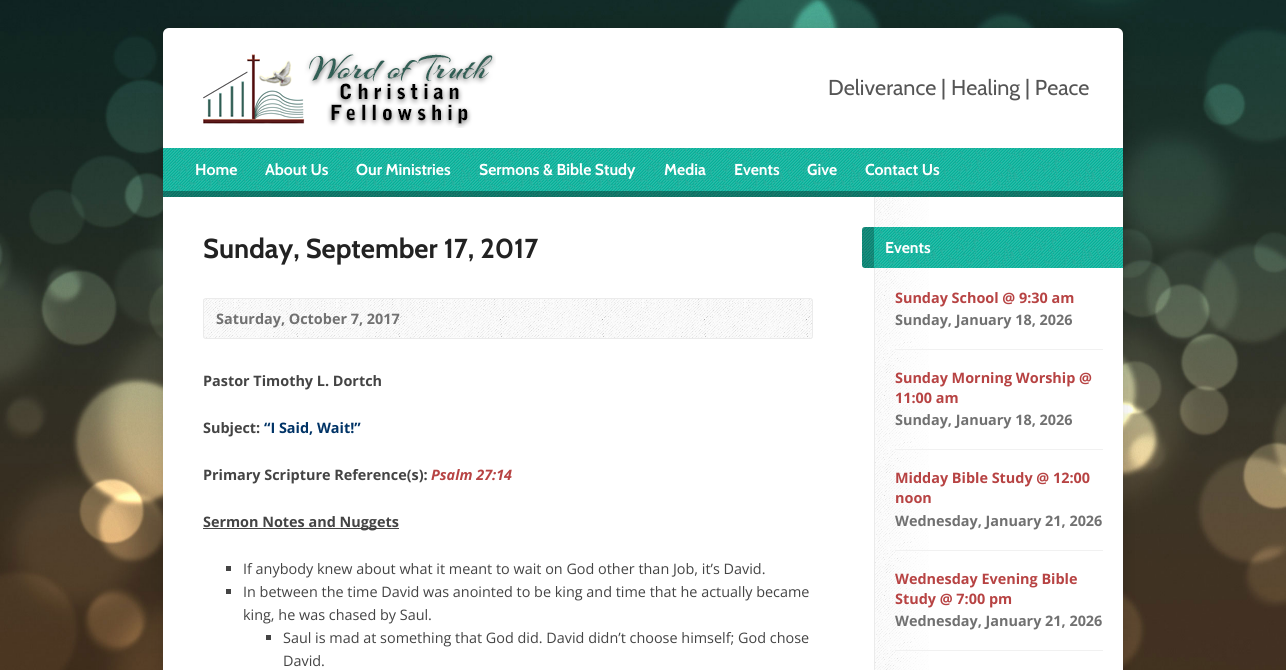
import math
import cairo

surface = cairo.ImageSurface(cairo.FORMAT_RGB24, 1286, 670)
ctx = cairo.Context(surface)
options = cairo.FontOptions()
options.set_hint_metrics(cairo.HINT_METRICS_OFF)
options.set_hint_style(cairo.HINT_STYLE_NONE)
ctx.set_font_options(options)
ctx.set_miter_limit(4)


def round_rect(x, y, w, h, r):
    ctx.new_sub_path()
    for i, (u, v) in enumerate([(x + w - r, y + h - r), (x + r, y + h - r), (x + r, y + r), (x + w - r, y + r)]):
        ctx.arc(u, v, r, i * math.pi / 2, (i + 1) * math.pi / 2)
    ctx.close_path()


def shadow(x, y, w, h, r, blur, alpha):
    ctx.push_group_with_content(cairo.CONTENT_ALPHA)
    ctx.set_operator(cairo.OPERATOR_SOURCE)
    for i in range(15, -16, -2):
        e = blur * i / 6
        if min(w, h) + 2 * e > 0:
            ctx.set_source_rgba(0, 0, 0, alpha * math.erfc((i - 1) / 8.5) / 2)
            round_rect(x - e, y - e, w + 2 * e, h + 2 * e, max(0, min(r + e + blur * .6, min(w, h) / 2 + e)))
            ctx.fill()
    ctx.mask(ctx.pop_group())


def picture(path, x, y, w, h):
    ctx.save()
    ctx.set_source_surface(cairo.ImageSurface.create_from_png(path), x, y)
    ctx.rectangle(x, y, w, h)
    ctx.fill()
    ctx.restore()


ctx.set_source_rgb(1, 1, 1)
ctx.paint()
picture("img1.png", 0, 0, 1286, 670)
ctx.set_source_rgb(0, 0, 0)
shadow(163, 28, 960, 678, 6, 10, 0.12)
ctx.set_source_rgb(1, 1, 1)
round_rect(163, 28, 960, 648, 6)
ctx.fill()
picture("img2.png", 203, 52, 293, 76)
ctx.select_font_face("Cabin")
ctx.set_font_size(21.6)
ctx.set_source_rgb(0.333, 0.333, 0.333)
ctx.move_to(828, 95)
ctx.show_text("Deliverance | Healing | Peace")
ctx.set_source_rgb(0, 0.749, 0.647)
ctx.rectangle(163, 148, 960, 49)
ctx.fill()
picture("img3.png", 163, 148, 960, 49)
ctx.select_font_face("Cabin", cairo.FONT_SLANT_NORMAL, cairo.FONT_WEIGHT_BOLD)
ctx.set_font_size(15.75)
ctx.set_source_rgb(1, 1, 1)
ctx.move_to(195, 175)
ctx.show_text("Home")
ctx.move_to(265, 175)
ctx.show_text("About Us")
ctx.move_to(356, 175)
ctx.show_text("Our Ministries")
ctx.move_to(479, 175)
ctx.show_text("Sermons & Bible Study")
ctx.move_to(664, 175)
ctx.show_text("Media")
ctx.move_to(734, 175)
ctx.show_text("Events")
ctx.move_to(807, 175)
ctx.show_text("Give")
ctx.move_to(865, 175)
ctx.show_text("Contact Us")
ctx.set_source_rgba(0, 0, 0, 0.35)
ctx.rectangle(163, 191, 960, 6)
ctx.fill()
ctx.set_font_size(27.4)
ctx.set_source_rgb(0.133, 0.133, 0.133)
ctx.move_to(203, 258)
ctx.show_text("Sunday, September 17, 2017")
picture("img4.png", 203, 298, 610, 41)
round_rect(203.5, 298.5, 609, 40, 2.5)
ctx.set_source_rgb(0.918, 0.918, 0.918)
ctx.set_line_width(1)
ctx.stroke()
ctx.select_font_face("Open Sans", cairo.FONT_SLANT_NORMAL, cairo.FONT_WEIGHT_BOLD)
ctx.set_font_size(14.4)
ctx.set_source_rgb(0.443, 0.443, 0.443)
ctx.move_to(216, 324)
ctx.show_text("Saturday, October 7, 2017")
ctx.set_source_rgb(0.267, 0.267, 0.267)
ctx.move_to(203, 386)
ctx.show_text("Pastor Timothy L. Dortch")
ctx.move_to(203, 433)
ctx.show_text("Subject:")
ctx.set_source_rgb(0, 0.2, 0.4)
ctx.move_to(264, 433)
ctx.show_text("“I Said, Wait!”")
ctx.set_source_rgb(0.267, 0.267, 0.267)
ctx.move_to(203, 480)
ctx.show_text("Primary Scripture Reference(s):")
ctx.select_font_face("Open Sans", cairo.FONT_SLANT_ITALIC, cairo.FONT_WEIGHT_BOLD)
ctx.set_source_rgb(0.718, 0.263, 0.263)
ctx.move_to(431, 480)
ctx.show_text("Psalm 27:14")
ctx.set_source_rgb(0.267, 0.267, 0.267)
ctx.rectangle(203, 528, 196, 1)
ctx.fill()
ctx.select_font_face("Open Sans", cairo.FONT_SLANT_NORMAL, cairo.FONT_WEIGHT_BOLD)
ctx.move_to(203, 527)
ctx.show_text("Sermon Notes and Nuggets")
ctx.rectangle(226, 566, 5, 5)
ctx.fill()
ctx.select_font_face("Open Sans")
ctx.move_to(243, 574)
ctx.show_text("If anybody knew about what it meant to wait on God other than Job, it’s David.")
ctx.rectangle(226, 589, 5, 5)
ctx.fill()
ctx.move_to(243, 597)
ctx.show_text("In between the time David was anointed to be king and time that he actually became")
ctx.move_to(243, 620)
ctx.show_text("king, he was chased by Saul.")
ctx.rectangle(266, 635, 5, 5)
ctx.fill()
ctx.move_to(283, 643)
ctx.show_text("Saul is mad at something that God did. David didn’t choose himself; God chose")
ctx.move_to(283, 666)
ctx.show_text("David.")
picture("img5.png", 875, 197, 54, 473)
ctx.set_source_rgb(0.918, 0.918, 0.918)
ctx.rectangle(874, 197, 1, 473)
ctx.fill()
ctx.set_source_rgb(0, 0.749, 0.647)
ctx.new_path()
ctx.move_to(865, 227)
ctx.line_to(1123, 227)
ctx.line_to(1123, 268)
ctx.line_to(865, 268)
ctx.curve_to(863.5, 268, 862, 266.5, 862, 265)
ctx.line_to(862, 230)
ctx.curve_to(862, 228.5, 863.5, 227, 865, 227)
ctx.close_path()
ctx.fill()
picture("img6.png", 862, 227, 261, 41)
ctx.select_font_face("Cabin", cairo.FONT_SLANT_NORMAL, cairo.FONT_WEIGHT_BOLD)
ctx.set_font_size(15.75)
ctx.set_source_rgb(1, 1, 1)
ctx.move_to(885, 253)
ctx.show_text("Events")
ctx.select_font_face("Open Sans", cairo.FONT_SLANT_NORMAL, cairo.FONT_WEIGHT_BOLD)
ctx.set_font_size(14.4)
ctx.set_source_rgb(0.718, 0.263, 0.263)
ctx.move_to(895, 303)
ctx.show_text("Sunday School @ 9:30 am")
ctx.set_source_rgb(0.443, 0.443, 0.443)
ctx.move_to(895, 325)
ctx.show_text("Sunday, January 18, 2026")
ctx.set_source_rgb(0.945, 0.945, 0.945)
ctx.rectangle(895, 349, 208, 1)
ctx.fill()
ctx.set_source_rgb(0.718, 0.263, 0.263)
ctx.move_to(895, 383)
ctx.show_text("Sunday Morning Worship @")
ctx.move_to(895, 403)
ctx.show_text("11:00 am")
ctx.set_source_rgb(0.443, 0.443, 0.443)
ctx.move_to(895, 425)
ctx.show_text("Sunday, January 18, 2026")
ctx.set_source_rgb(0.945, 0.945, 0.945)
ctx.rectangle(895, 449, 208, 1)
ctx.fill()
ctx.set_source_rgb(0.718, 0.263, 0.263)
ctx.move_to(895, 483)
ctx.show_text("Midday Bible Study @ 12:00")
ctx.move_to(895, 503)
ctx.show_text("noon")
ctx.set_source_rgb(0.443, 0.443, 0.443)
ctx.move_to(895, 526)
ctx.show_text("Wednesday, January 21, 2026")
ctx.set_source_rgb(0.945, 0.945, 0.945)
ctx.rectangle(895, 550, 208, 1)
ctx.fill()
ctx.set_source_rgb(0.718, 0.263, 0.263)
ctx.move_to(895, 584)
ctx.show_text("Wednesday Evening Bible")
ctx.move_to(895, 604)
ctx.show_text("Study @ 7:00 pm")
ctx.set_source_rgb(0.443, 0.443, 0.443)
ctx.move_to(895, 626)
ctx.show_text("Wednesday, January 21, 2026")
ctx.set_source_rgb(0.945, 0.945, 0.945)
ctx.rectangle(895, 650, 208, 1)
ctx.fill()
surface.write_to_png("page.png")
